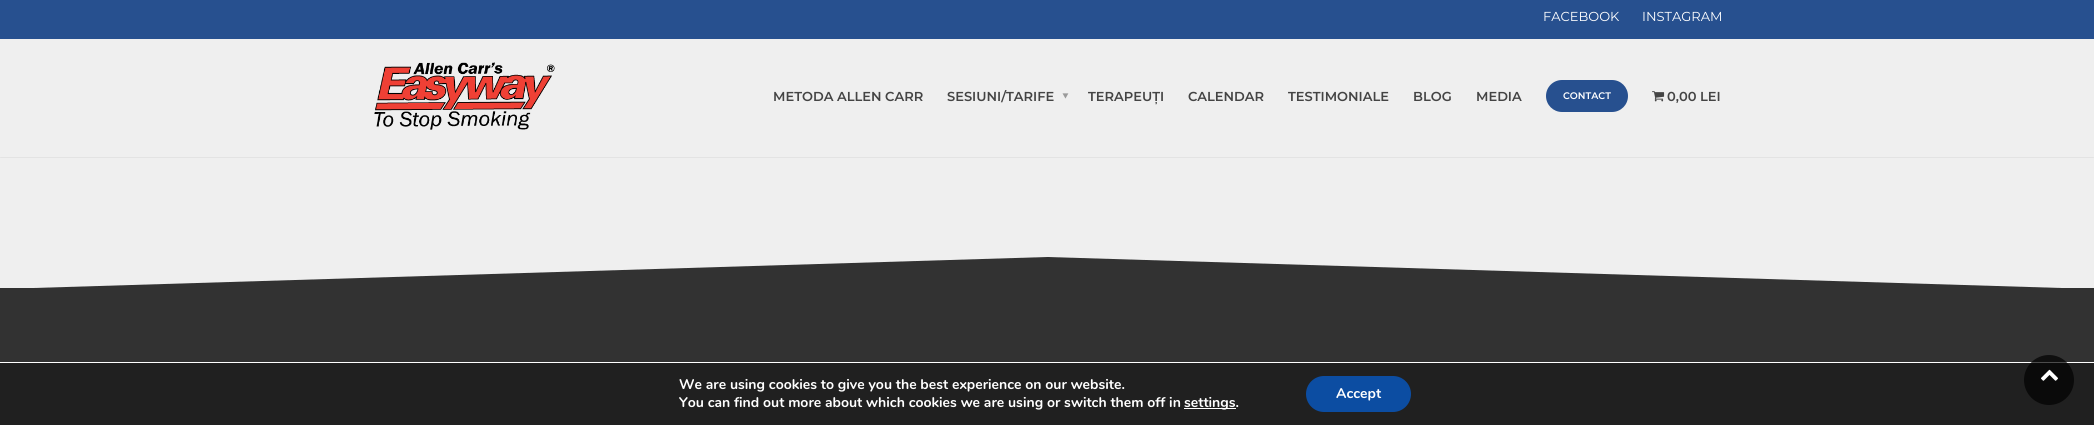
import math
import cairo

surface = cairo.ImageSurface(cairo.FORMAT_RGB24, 2094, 425)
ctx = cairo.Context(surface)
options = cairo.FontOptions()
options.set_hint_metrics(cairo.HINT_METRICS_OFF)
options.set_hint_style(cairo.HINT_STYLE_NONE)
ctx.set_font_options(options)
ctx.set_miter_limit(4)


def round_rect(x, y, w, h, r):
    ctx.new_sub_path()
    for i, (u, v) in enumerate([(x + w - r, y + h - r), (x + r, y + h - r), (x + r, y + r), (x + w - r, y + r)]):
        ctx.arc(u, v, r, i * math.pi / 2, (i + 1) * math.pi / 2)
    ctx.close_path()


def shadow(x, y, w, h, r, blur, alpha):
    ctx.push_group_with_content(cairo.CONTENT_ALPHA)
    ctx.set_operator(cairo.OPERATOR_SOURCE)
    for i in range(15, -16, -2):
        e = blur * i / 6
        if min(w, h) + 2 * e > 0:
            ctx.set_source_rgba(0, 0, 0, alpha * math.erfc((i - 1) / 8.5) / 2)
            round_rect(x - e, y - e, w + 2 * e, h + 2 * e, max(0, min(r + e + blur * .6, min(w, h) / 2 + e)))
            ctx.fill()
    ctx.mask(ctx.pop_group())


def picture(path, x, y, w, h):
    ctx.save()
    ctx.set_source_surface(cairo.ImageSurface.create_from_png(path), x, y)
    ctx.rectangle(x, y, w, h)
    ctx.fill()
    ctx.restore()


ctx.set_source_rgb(0.937, 0.937, 0.937)
ctx.paint()
ctx.set_source_rgb(0, 0, 0)
shadow(0, 35, 2094, 122, 0, 0.5, 0.2)
ctx.set_source_rgb(0.153, 0.314, 0.561)
ctx.rectangle(0, 0, 2094, 39)
ctx.fill()
ctx.select_font_face("Montserrat")
ctx.set_font_size(13)
ctx.set_source_rgb(1, 1, 1)
ctx.move_to(1543, 21)
ctx.show_text("FACEBOOK")
ctx.move_to(1642, 21)
ctx.show_text("INSTAGRAM")
ctx.set_source_rgb(0.937, 0.937, 0.937)
ctx.rectangle(0, 39, 2094, 118)
ctx.fill()
picture("img1.png", 374, 62, 181, 68)
ctx.select_font_face("Montserrat SemiBold")
ctx.set_source_rgb(0.267, 0.267, 0.267)
ctx.move_to(773, 101)
ctx.show_text("METODA ALLEN CARR")
ctx.move_to(947, 101)
ctx.show_text("SESIUNI/TARIFE")
ctx.select_font_face("Noto Sans")
ctx.set_font_size(20)
ctx.set_source_rgb(0.604, 0.604, 0.604)
ctx.save()
ctx.translate(1058, 92)
ctx.rotate(90 * math.pi / 180)
ctx.move_to(0, 0)
ctx.show_text("‣")
ctx.restore()
ctx.select_font_face("Montserrat SemiBold")
ctx.set_font_size(13)
ctx.set_source_rgb(0.267, 0.267, 0.267)
ctx.move_to(1088, 101)
ctx.show_text("TERAPEUȚI")
ctx.move_to(1188, 101)
ctx.show_text("CALENDAR")
ctx.move_to(1288, 101)
ctx.show_text("TESTIMONIALE")
ctx.move_to(1413, 101)
ctx.show_text("BLOG")
ctx.move_to(1476, 101)
ctx.show_text("MEDIA")
ctx.set_source_rgb(0.153, 0.314, 0.561)
round_rect(1546, 80, 82, 32, 16)
ctx.fill()
ctx.set_font_size(9.5)
ctx.set_source_rgb(1, 1, 1)
ctx.move_to(1563, 99)
ctx.show_text("CONTACT")
picture("img2.png", 1652, 91, 13, 11)
ctx.set_font_size(13)
ctx.set_source_rgb(0.267, 0.267, 0.267)
ctx.move_to(1667, 101)
ctx.show_text("0,00 LEI")
ctx.set_source_rgb(0.196, 0.196, 0.196)
ctx.rectangle(0, 288, 2094, 74)
ctx.fill()
ctx.new_path()
ctx.move_to(1047, 289)
ctx.line_to(1047, 257)
ctx.line_to(0, 289)
ctx.close_path()
ctx.fill()
ctx.new_path()
ctx.move_to(1047, 289)
ctx.line_to(1047, 257)
ctx.line_to(2094, 289)
ctx.close_path()
ctx.fill()
ctx.set_source_rgb(0.125, 0.125, 0.125)
ctx.rectangle(0, 363, 2094, 62)
ctx.fill()
ctx.set_source_rgb(1, 1, 1)
ctx.rectangle(0, 362, 2094, 1)
ctx.fill()
ctx.select_font_face("Nunito", cairo.FONT_SLANT_NORMAL, cairo.FONT_WEIGHT_BOLD)
ctx.set_font_size(14)
ctx.move_to(679, 389)
ctx.show_text("We are using cookies to give you the best experience on our website.")
ctx.move_to(679, 407)
ctx.show_text("You can find out more about which cookies we are using or switch them off in")
ctx.rectangle(1184, 408, 52, 1)
ctx.fill()
ctx.move_to(1184, 407)
ctx.show_text("settings.")
ctx.set_source_rgb(0.047, 0.302, 0.635)
round_rect(1306, 376, 105, 36, 18)
ctx.fill()
ctx.set_source_rgb(1, 1, 1)
ctx.move_to(1336, 398)
ctx.show_text("Accept")
ctx.set_source_rgba(0, 0, 0, 0.7)
ctx.new_path()
ctx.arc(2049, 380, 25, 0, 2 * math.pi)
ctx.fill()
picture("img3.png", 2041, 369, 17, 12)
surface.write_to_png("page.png")
